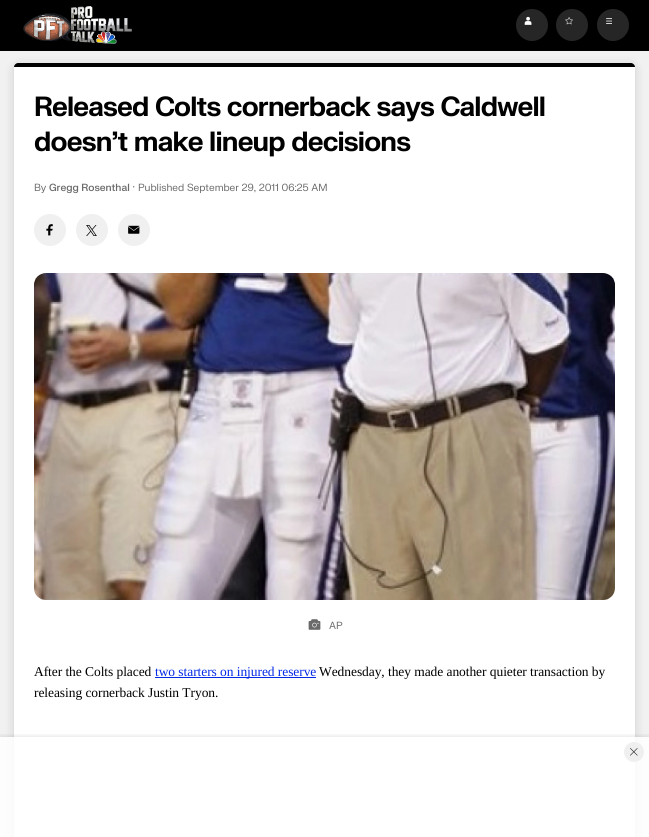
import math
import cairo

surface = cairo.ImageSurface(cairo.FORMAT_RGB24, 649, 837)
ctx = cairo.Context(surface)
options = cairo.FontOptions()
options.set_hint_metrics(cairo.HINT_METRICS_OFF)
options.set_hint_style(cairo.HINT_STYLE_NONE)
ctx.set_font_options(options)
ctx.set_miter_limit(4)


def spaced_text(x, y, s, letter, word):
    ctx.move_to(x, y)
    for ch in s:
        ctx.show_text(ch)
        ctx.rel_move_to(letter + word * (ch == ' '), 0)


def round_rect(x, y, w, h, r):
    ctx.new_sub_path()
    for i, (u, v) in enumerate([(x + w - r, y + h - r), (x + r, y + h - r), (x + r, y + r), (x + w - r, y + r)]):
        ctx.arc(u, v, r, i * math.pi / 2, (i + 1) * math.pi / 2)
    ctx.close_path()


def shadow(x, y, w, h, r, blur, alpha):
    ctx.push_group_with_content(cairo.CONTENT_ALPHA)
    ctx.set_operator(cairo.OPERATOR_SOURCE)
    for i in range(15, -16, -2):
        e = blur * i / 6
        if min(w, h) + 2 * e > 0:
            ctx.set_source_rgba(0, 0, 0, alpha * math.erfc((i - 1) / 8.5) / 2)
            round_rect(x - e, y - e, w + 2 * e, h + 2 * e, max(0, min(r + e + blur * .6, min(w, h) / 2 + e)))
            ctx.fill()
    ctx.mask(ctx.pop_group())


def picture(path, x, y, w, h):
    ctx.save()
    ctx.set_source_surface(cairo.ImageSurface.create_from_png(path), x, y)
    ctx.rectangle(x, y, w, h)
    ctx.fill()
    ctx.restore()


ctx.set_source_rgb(0.945, 0.945, 0.945)
ctx.paint()
ctx.set_source_rgb(0, 0, 0)
shadow(14, 65, 621, 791, 4, 5, 0.15)
ctx.set_source_rgb(0, 0, 0)
ctx.rectangle(0, 0, 649, 51)
ctx.fill()
picture("img1.png", 23, 6, 109, 38)
ctx.set_source_rgb(0.149, 0.149, 0.149)
ctx.arc(532, 25, 16, 0, 2 * math.pi)
ctx.fill()
picture("img2.png", 524, 16, 8, 9)
ctx.arc(572, 25, 16, 0, 2 * math.pi)
ctx.fill()
picture("img3.png", 565, 17, 8, 8)
ctx.arc(613, 25, 16, 0, 2 * math.pi)
ctx.fill()
picture("img4.png", 606, 18, 6, 6)
ctx.set_source_rgb(1, 1, 1)
round_rect(14, 63, 621, 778, 4)
ctx.fill()
ctx.set_source_rgb(0, 0, 0)
ctx.new_path()
ctx.move_to(18, 63)
ctx.line_to(631, 63)
ctx.curve_to(633, 63, 635, 65, 635, 67)
ctx.line_to(14, 67)
ctx.curve_to(14, 65, 16, 63, 18, 63)
ctx.close_path()
ctx.fill()
ctx.select_font_face("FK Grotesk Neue", cairo.FONT_SLANT_NORMAL, cairo.FONT_WEIGHT_BOLD)
ctx.set_font_size(27)
spaced_text(34, 116, "Released Colts cornerback says Caldwell", -0.8, 0)
spaced_text(34, 151, "doesn’t make lineup decisions", -0.8, 0)
ctx.select_font_face("FK Grotesk Neue")
ctx.set_font_size(10.1)
ctx.set_source_rgb(0.416, 0.416, 0.416)
spaced_text(34, 191, "By", -0.05, 0)
ctx.select_font_face("FK Grotesk Neue Medium")
spaced_text(49, 191, "Gregg Rosenthal", -0.05, 0)
ctx.new_path()
ctx.arc(133.7, 186.8, 0.7, 0, 2 * math.pi)
ctx.fill()
ctx.select_font_face("FK Grotesk Neue")
spaced_text(138, 191, "Published September 29, 2011 06:25 AM", -0.05, 0)
ctx.set_source_rgb(0.941, 0.941, 0.941)
ctx.new_path()
ctx.arc(50, 230, 16, 0, 2 * math.pi)
ctx.fill()
picture("img5.png", 46, 224, 7, 12)
ctx.arc(92, 230, 16, 0, 2 * math.pi)
ctx.fill()
picture("img6.png", 86, 225, 11, 11)
ctx.arc(134, 230, 16, 0, 2 * math.pi)
ctx.fill()
picture("img7.png", 128, 225, 12, 9)
picture("img8.png", 34, 273, 581, 327)
picture("img9.png", 308, 619, 13, 11)
ctx.set_source_rgb(0.416, 0.416, 0.416)
spaced_text(329, 629, "AP", -0.05, 0)
ctx.select_font_face("Liberation Serif")
ctx.set_font_size(13.5)
ctx.set_source_rgb(0, 0, 0)
spaced_text(34, 676, "After the Colts placed", -0.07, 0)
ctx.set_source_rgb(0.012, 0.161, 0.906)
ctx.rectangle(155, 677, 161, 1)
ctx.fill()
spaced_text(155, 676, "two starters on injured reserve", -0.07, 0)
ctx.set_source_rgb(0, 0, 0)
spaced_text(319, 676, "Wednesday, they made another quieter transaction by", -0.07, 0)
spaced_text(34, 697, "releasing cornerback Justin Tryon.", -0.07, 0)
ctx.save()
ctx.rectangle(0, 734, 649, 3)
ctx.clip()
ctx.set_source_rgb(0, 0, 0)
shadow(0, 735, 649, 100, 0, 2, 0.08)
ctx.restore()
ctx.set_source_rgba(1, 1, 1, 0.85)
ctx.rectangle(0, 737, 649, 100)
ctx.fill()
ctx.set_source_rgb(0.937, 0.937, 0.937)
ctx.arc(634, 752, 10, 0, 2 * math.pi)
ctx.fill()
picture("img10.png", 630, 748, 8, 8)
surface.write_to_png("page.png")
